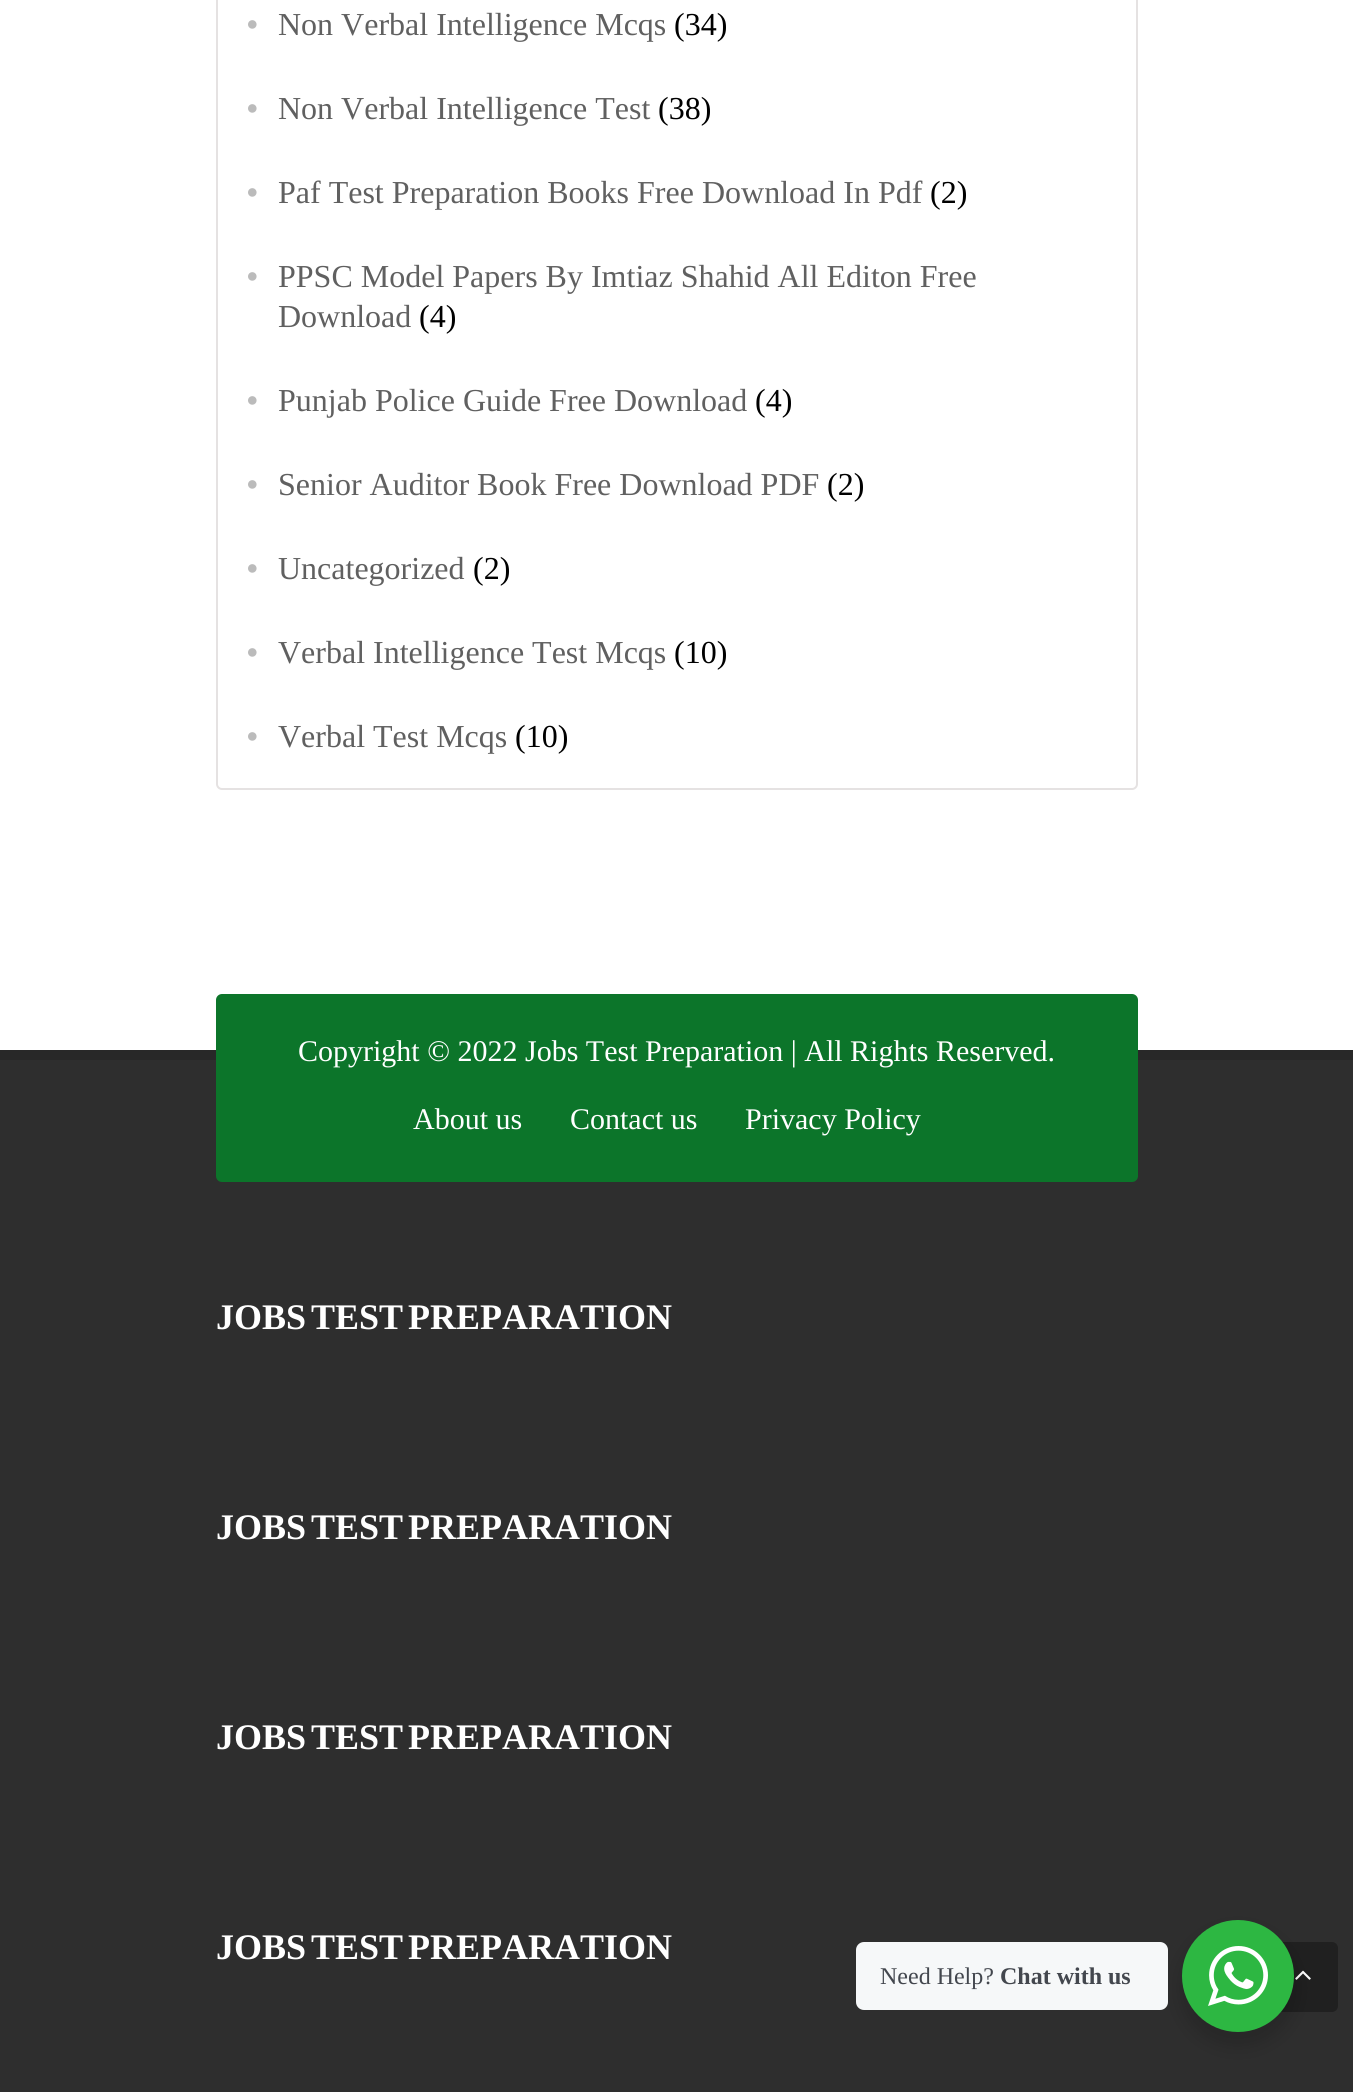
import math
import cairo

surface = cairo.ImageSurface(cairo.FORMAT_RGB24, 1353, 2092)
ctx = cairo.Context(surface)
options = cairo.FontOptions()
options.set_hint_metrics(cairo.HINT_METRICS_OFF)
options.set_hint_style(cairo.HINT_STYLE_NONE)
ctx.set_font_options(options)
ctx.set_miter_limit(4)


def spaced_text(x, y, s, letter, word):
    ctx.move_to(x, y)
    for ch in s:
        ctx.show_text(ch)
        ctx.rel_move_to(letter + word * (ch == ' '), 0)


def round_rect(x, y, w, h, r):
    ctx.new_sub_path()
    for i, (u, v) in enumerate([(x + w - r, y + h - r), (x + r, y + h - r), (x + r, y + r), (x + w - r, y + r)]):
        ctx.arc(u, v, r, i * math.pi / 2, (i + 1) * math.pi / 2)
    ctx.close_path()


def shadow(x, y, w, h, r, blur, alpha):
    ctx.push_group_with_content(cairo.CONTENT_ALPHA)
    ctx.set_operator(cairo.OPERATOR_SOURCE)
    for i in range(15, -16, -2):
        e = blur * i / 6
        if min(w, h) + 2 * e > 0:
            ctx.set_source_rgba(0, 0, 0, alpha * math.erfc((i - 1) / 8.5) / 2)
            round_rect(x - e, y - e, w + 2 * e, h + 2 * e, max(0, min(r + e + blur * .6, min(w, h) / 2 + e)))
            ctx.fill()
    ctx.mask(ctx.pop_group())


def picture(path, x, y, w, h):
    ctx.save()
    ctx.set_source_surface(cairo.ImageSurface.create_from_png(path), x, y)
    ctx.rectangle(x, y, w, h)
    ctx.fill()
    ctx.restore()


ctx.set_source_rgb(1, 1, 1)
ctx.paint()
round_rect(217, -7, 920, 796, 5)
ctx.set_source_rgb(0.898, 0.886, 0.886)
ctx.stroke()
picture("img1.png", 248, 20, 9, 9)
ctx.select_font_face("Liberation Serif")
ctx.set_font_size(32)
ctx.set_source_rgb(0.376, 0.376, 0.376)
ctx.move_to(278, 35)
ctx.show_text("Non Verbal Intelligence Mcqs")
ctx.set_source_rgb(0, 0, 0)
ctx.move_to(674, 35)
ctx.show_text("(34)")
picture("img1.png", 248, 104, 9, 9)
ctx.set_source_rgb(0.376, 0.376, 0.376)
ctx.move_to(278, 119)
ctx.show_text("Non Verbal Intelligence Test")
ctx.set_source_rgb(0, 0, 0)
ctx.move_to(658, 119)
ctx.show_text("(38)")
picture("img1.png", 248, 188, 9, 9)
ctx.set_source_rgb(0.376, 0.376, 0.376)
ctx.move_to(278, 203)
ctx.show_text("Paf Test Preparation Books Free Download In Pdf")
ctx.set_source_rgb(0, 0, 0)
ctx.move_to(930, 203)
ctx.show_text("(2)")
picture("img1.png", 248, 272, 9, 9)
ctx.set_source_rgb(0.376, 0.376, 0.376)
ctx.move_to(278, 287)
ctx.show_text("PPSC Model Papers By Imtiaz Shahid All Editon Free")
ctx.move_to(278, 327)
ctx.show_text("Download")
ctx.set_source_rgb(0, 0, 0)
ctx.move_to(419, 327)
ctx.show_text("(4)")
picture("img1.png", 248, 396, 9, 9)
ctx.set_source_rgb(0.376, 0.376, 0.376)
ctx.move_to(278, 411)
ctx.show_text("Punjab Police Guide Free Download")
ctx.set_source_rgb(0, 0, 0)
ctx.move_to(755, 411)
ctx.show_text("(4)")
picture("img1.png", 248, 480, 9, 9)
ctx.set_source_rgb(0.376, 0.376, 0.376)
ctx.move_to(278, 495)
ctx.show_text("Senior Auditor Book Free Download PDF")
ctx.set_source_rgb(0, 0, 0)
ctx.move_to(827, 495)
ctx.show_text("(2)")
picture("img1.png", 248, 564, 9, 9)
ctx.set_source_rgb(0.376, 0.376, 0.376)
ctx.move_to(278, 579)
ctx.show_text("Uncategorized")
ctx.set_source_rgb(0, 0, 0)
ctx.move_to(473, 579)
ctx.show_text("(2)")
picture("img1.png", 248, 648, 9, 9)
ctx.set_source_rgb(0.376, 0.376, 0.376)
ctx.move_to(278, 663)
ctx.show_text("Verbal Intelligence Test Mcqs")
ctx.set_source_rgb(0, 0, 0)
ctx.move_to(674, 663)
ctx.show_text("(10)")
picture("img1.png", 248, 732, 9, 9)
ctx.set_source_rgb(0.376, 0.376, 0.376)
ctx.move_to(278, 747)
ctx.show_text("Verbal Test Mcqs")
ctx.set_source_rgb(0, 0, 0)
ctx.move_to(515, 747)
ctx.show_text("(10)")
ctx.set_source_rgb(0.18, 0.18, 0.18)
ctx.rectangle(0, 1060, 1353, 1032)
ctx.fill()
ctx.set_source_rgb(0.157, 0.157, 0.157)
ctx.rectangle(0, 1050, 1353, 10)
ctx.fill()
ctx.set_source_rgb(0.047, 0.459, 0.165)
round_rect(216, 994, 922, 188, 6)
ctx.fill()
ctx.set_font_size(30)
ctx.set_source_rgb(1, 1, 1)
ctx.move_to(298, 1061)
ctx.show_text("Copyright © 2022 Jobs Test Preparation | All Rights Reserved.")
ctx.move_to(413, 1129)
ctx.show_text("About us")
ctx.move_to(570, 1129)
ctx.show_text("Contact us")
ctx.move_to(745, 1129)
ctx.show_text("Privacy Policy")
ctx.select_font_face("Liberation Serif", cairo.FONT_SLANT_NORMAL, cairo.FONT_WEIGHT_BOLD)
ctx.set_font_size(36)
spaced_text(216, 1329, "JOBS TEST PREPARATION", 0, -4)
spaced_text(216, 1539, "JOBS TEST PREPARATION", 0, -4)
spaced_text(216, 1749, "JOBS TEST PREPARATION", 0, -4)
spaced_text(216, 1959, "JOBS TEST PREPARATION", 0, -4)
ctx.set_source_rgb(0.125, 0.125, 0.125)
round_rect(1268, 1942, 70, 70, 6)
ctx.fill()
picture("img2.png", 1295, 1970, 16, 10)
ctx.set_source_rgb(0, 0, 0)
shadow(1178, 1928, 120, 120, 60, 8, 0.14)
ctx.set_source_rgb(0.961, 0.969, 0.976)
round_rect(856, 1942, 312, 68, 8)
ctx.fill()
ctx.select_font_face("Liberation Serif")
ctx.set_font_size(24)
ctx.set_source_rgb(0.263, 0.278, 0.306)
ctx.move_to(880, 1984)
ctx.show_text("Need Help?")
ctx.select_font_face("Liberation Serif", cairo.FONT_SLANT_NORMAL, cairo.FONT_WEIGHT_BOLD)
ctx.move_to(1000, 1984)
ctx.show_text("Chat with us")
ctx.set_source_rgb(0.176, 0.718, 0.259)
ctx.new_path()
ctx.arc(1238, 1976, 56, 0, 2 * math.pi)
ctx.fill()
picture("img3.png", 1208, 1946, 60, 60)
surface.write_to_png("page.png")
